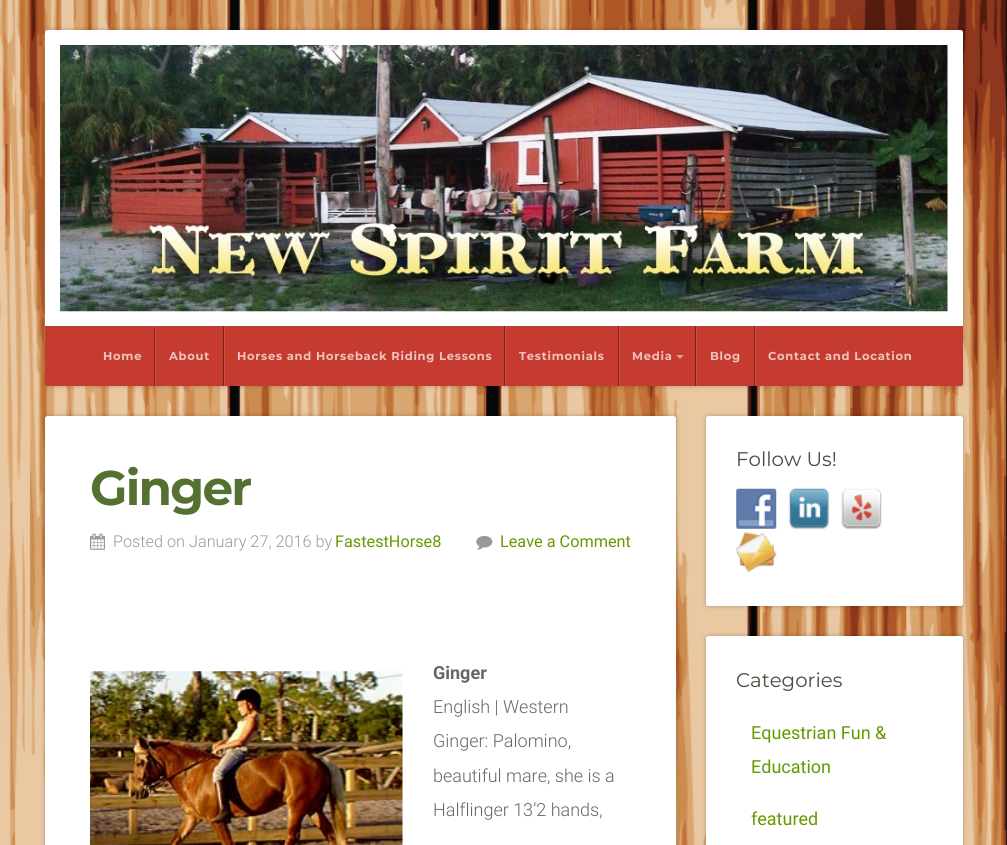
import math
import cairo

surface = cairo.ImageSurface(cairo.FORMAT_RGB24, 1007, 845)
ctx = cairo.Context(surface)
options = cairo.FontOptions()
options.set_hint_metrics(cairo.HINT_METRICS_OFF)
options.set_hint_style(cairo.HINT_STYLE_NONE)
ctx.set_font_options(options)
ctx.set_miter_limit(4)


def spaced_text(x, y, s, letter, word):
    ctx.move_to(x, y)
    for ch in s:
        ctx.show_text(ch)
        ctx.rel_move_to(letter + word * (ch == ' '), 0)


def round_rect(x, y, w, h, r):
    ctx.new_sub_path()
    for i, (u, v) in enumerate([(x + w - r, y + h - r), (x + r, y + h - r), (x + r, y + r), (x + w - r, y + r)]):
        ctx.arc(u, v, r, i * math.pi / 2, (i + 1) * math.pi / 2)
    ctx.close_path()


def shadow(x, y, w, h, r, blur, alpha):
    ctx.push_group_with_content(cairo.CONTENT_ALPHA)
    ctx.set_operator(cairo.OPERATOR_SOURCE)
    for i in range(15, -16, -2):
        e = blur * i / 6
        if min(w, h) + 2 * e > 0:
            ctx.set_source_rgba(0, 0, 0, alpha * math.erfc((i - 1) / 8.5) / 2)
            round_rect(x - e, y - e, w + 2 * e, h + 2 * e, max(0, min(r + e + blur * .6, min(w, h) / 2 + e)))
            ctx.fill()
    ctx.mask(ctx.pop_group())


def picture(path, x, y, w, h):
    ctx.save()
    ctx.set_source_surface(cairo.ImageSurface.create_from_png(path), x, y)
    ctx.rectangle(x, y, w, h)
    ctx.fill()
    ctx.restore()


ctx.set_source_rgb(1, 1, 1)
ctx.paint()
picture("img1.png", 0, 0, 1007, 845)
ctx.set_source_rgb(0, 0, 0)
shadow(45, 30, 918, 356, 2.5, 2.5, 0.24)
ctx.set_source_rgb(1, 1, 1)
ctx.new_path()
ctx.move_to(47.5, 30)
ctx.line_to(960.5, 30)
ctx.curve_to(962, 30, 963, 31, 963, 32.5)
ctx.line_to(963, 326)
ctx.line_to(45, 326)
ctx.line_to(45, 32.5)
ctx.curve_to(45, 31, 46, 30, 47.5, 30)
ctx.close_path()
ctx.fill()
picture("img2.png", 60, 45, 888, 267)
ctx.set_source_rgb(0.773, 0.231, 0.184)
ctx.new_path()
ctx.move_to(45, 326)
ctx.line_to(963, 326)
ctx.line_to(963, 383.5)
ctx.curve_to(963, 385, 962, 386, 960.5, 386)
ctx.line_to(47.5, 386)
ctx.curve_to(46, 386, 45, 385, 45, 383.5)
ctx.close_path()
ctx.fill()
ctx.set_source_rgb(0.463, 0.137, 0.11)
ctx.rectangle(154, 328, 1, 58)
ctx.fill()
ctx.select_font_face("Montserrat", cairo.FONT_SLANT_NORMAL, cairo.FONT_WEIGHT_BOLD)
ctx.set_font_size(11.5)
ctx.set_source_rgb(0.933, 0.769, 0.757)
spaced_text(103, 360, "Home", 0.75, 0)
ctx.set_source_rgb(0.463, 0.137, 0.11)
ctx.rectangle(223, 326, 1, 60)
ctx.fill()
ctx.set_source_rgb(0.796, 0.31, 0.267)
ctx.rectangle(155, 326, 1, 60)
ctx.fill()
ctx.set_source_rgb(0.933, 0.769, 0.757)
spaced_text(169, 360, "About", 0.75, 0)
ctx.set_source_rgb(0.463, 0.137, 0.11)
ctx.rectangle(504, 326, 1, 60)
ctx.fill()
ctx.set_source_rgb(0.796, 0.31, 0.267)
ctx.rectangle(224, 326, 1, 60)
ctx.fill()
ctx.set_source_rgb(0.933, 0.769, 0.757)
spaced_text(237, 360, "Horses and Horseback Riding Lessons", 0.75, 0)
ctx.set_source_rgb(0.463, 0.137, 0.11)
ctx.rectangle(618, 326, 1, 60)
ctx.fill()
ctx.set_source_rgb(0.796, 0.31, 0.267)
ctx.rectangle(505, 326, 1, 60)
ctx.fill()
ctx.set_source_rgb(0.933, 0.769, 0.757)
spaced_text(519, 360, "Testimonials", 0.75, 0)
ctx.set_source_rgb(0.463, 0.137, 0.11)
ctx.rectangle(695, 326, 1, 60)
ctx.fill()
ctx.set_source_rgb(0.796, 0.31, 0.267)
ctx.rectangle(619, 326, 1, 60)
ctx.fill()
ctx.set_source_rgb(0.933, 0.769, 0.757)
spaced_text(632, 360, "Media", 0.75, 0)
ctx.set_source_rgb(0.886, 0.616, 0.592)
ctx.new_path()
ctx.move_to(676, 355)
ctx.line_to(684, 355)
ctx.line_to(680, 359)
ctx.close_path()
ctx.fill()
ctx.set_source_rgb(0.463, 0.137, 0.11)
ctx.rectangle(754, 326, 1, 60)
ctx.fill()
ctx.set_source_rgb(0.796, 0.31, 0.267)
ctx.rectangle(696, 326, 1, 60)
ctx.fill()
ctx.set_source_rgb(0.933, 0.769, 0.757)
spaced_text(710, 360, "Blog", 0.75, 0)
ctx.set_source_rgb(0.796, 0.31, 0.267)
ctx.rectangle(755, 326, 1, 60)
ctx.fill()
ctx.set_source_rgb(0.933, 0.769, 0.757)
spaced_text(768, 360, "Contact and Location", 0.75, 0)
ctx.set_source_rgb(0, 0, 0)
shadow(45, 416, 631, 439, 2.5, 2.5, 0.24)
ctx.set_source_rgb(1, 1, 1)
round_rect(45, 416, 631, 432, 2.5)
ctx.fill()
ctx.set_font_size(48.5)
ctx.set_source_rgb(0.329, 0.443, 0.192)
spaced_text(90, 505, "Ginger", -1.75, 0)
picture("img3.png", 90, 533, 16, 17)
ctx.select_font_face("Roboto Light")
ctx.set_font_size(16.25)
ctx.set_source_rgb(0.6, 0.6, 0.6)
ctx.move_to(113, 547)
ctx.show_text("Posted on January 27, 2016 by")
ctx.select_font_face("Roboto")
ctx.set_source_rgb(0.4, 0.6, 0)
ctx.move_to(335, 547)
ctx.show_text("FastestHorse8")
picture("img4.png", 476, 535, 17, 15)
ctx.move_to(500, 547)
ctx.show_text("Leave a Comment")
picture("img5.png", 90, 671, 313, 174)
ctx.select_font_face("Roboto", cairo.FONT_SLANT_NORMAL, cairo.FONT_WEIGHT_BOLD)
ctx.set_font_size(18)
ctx.set_source_rgb(0.4, 0.4, 0.4)
ctx.move_to(433, 679)
ctx.show_text("Ginger")
ctx.select_font_face("Roboto Light")
ctx.move_to(433, 713)
ctx.show_text("English | Western")
ctx.move_to(433, 747)
ctx.show_text("Ginger: Palomino,")
ctx.move_to(433, 782)
ctx.show_text("beautiful mare, she is a")
ctx.move_to(433, 816)
ctx.show_text("Halflinger 13’2 hands,")
ctx.set_source_rgb(0, 0, 0)
shadow(706, 416, 257, 190, 2.5, 2.5, 0.24)
ctx.set_source_rgb(1, 1, 1)
round_rect(706, 416, 257, 190, 2.5)
ctx.fill()
ctx.select_font_face("Montserrat")
ctx.set_font_size(19.75)
ctx.set_source_rgb(0.314, 0.278, 0.255)
ctx.move_to(736, 466)
ctx.show_text("Follow Us!")
picture("img6.png", 736, 488, 41, 41)
picture("img7.png", 788, 488, 41, 41)
picture("img8.png", 841, 488, 41, 41)
picture("img9.png", 736, 532, 41, 41)
ctx.set_source_rgb(0, 0, 0)
shadow(706, 636, 257, 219, 2.5, 2.5, 0.24)
ctx.set_source_rgb(1, 1, 1)
round_rect(706, 636, 257, 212, 2.5)
ctx.fill()
ctx.set_source_rgb(0.314, 0.278, 0.255)
ctx.move_to(736, 687)
ctx.show_text("Categories")
ctx.select_font_face("Roboto")
ctx.set_font_size(18)
ctx.set_source_rgb(0.4, 0.6, 0)
ctx.move_to(751, 739)
ctx.show_text("Equestrian Fun &")
ctx.move_to(751, 773)
ctx.show_text("Education")
ctx.move_to(751, 825)
ctx.show_text("featured")
surface.write_to_png("page.png")
